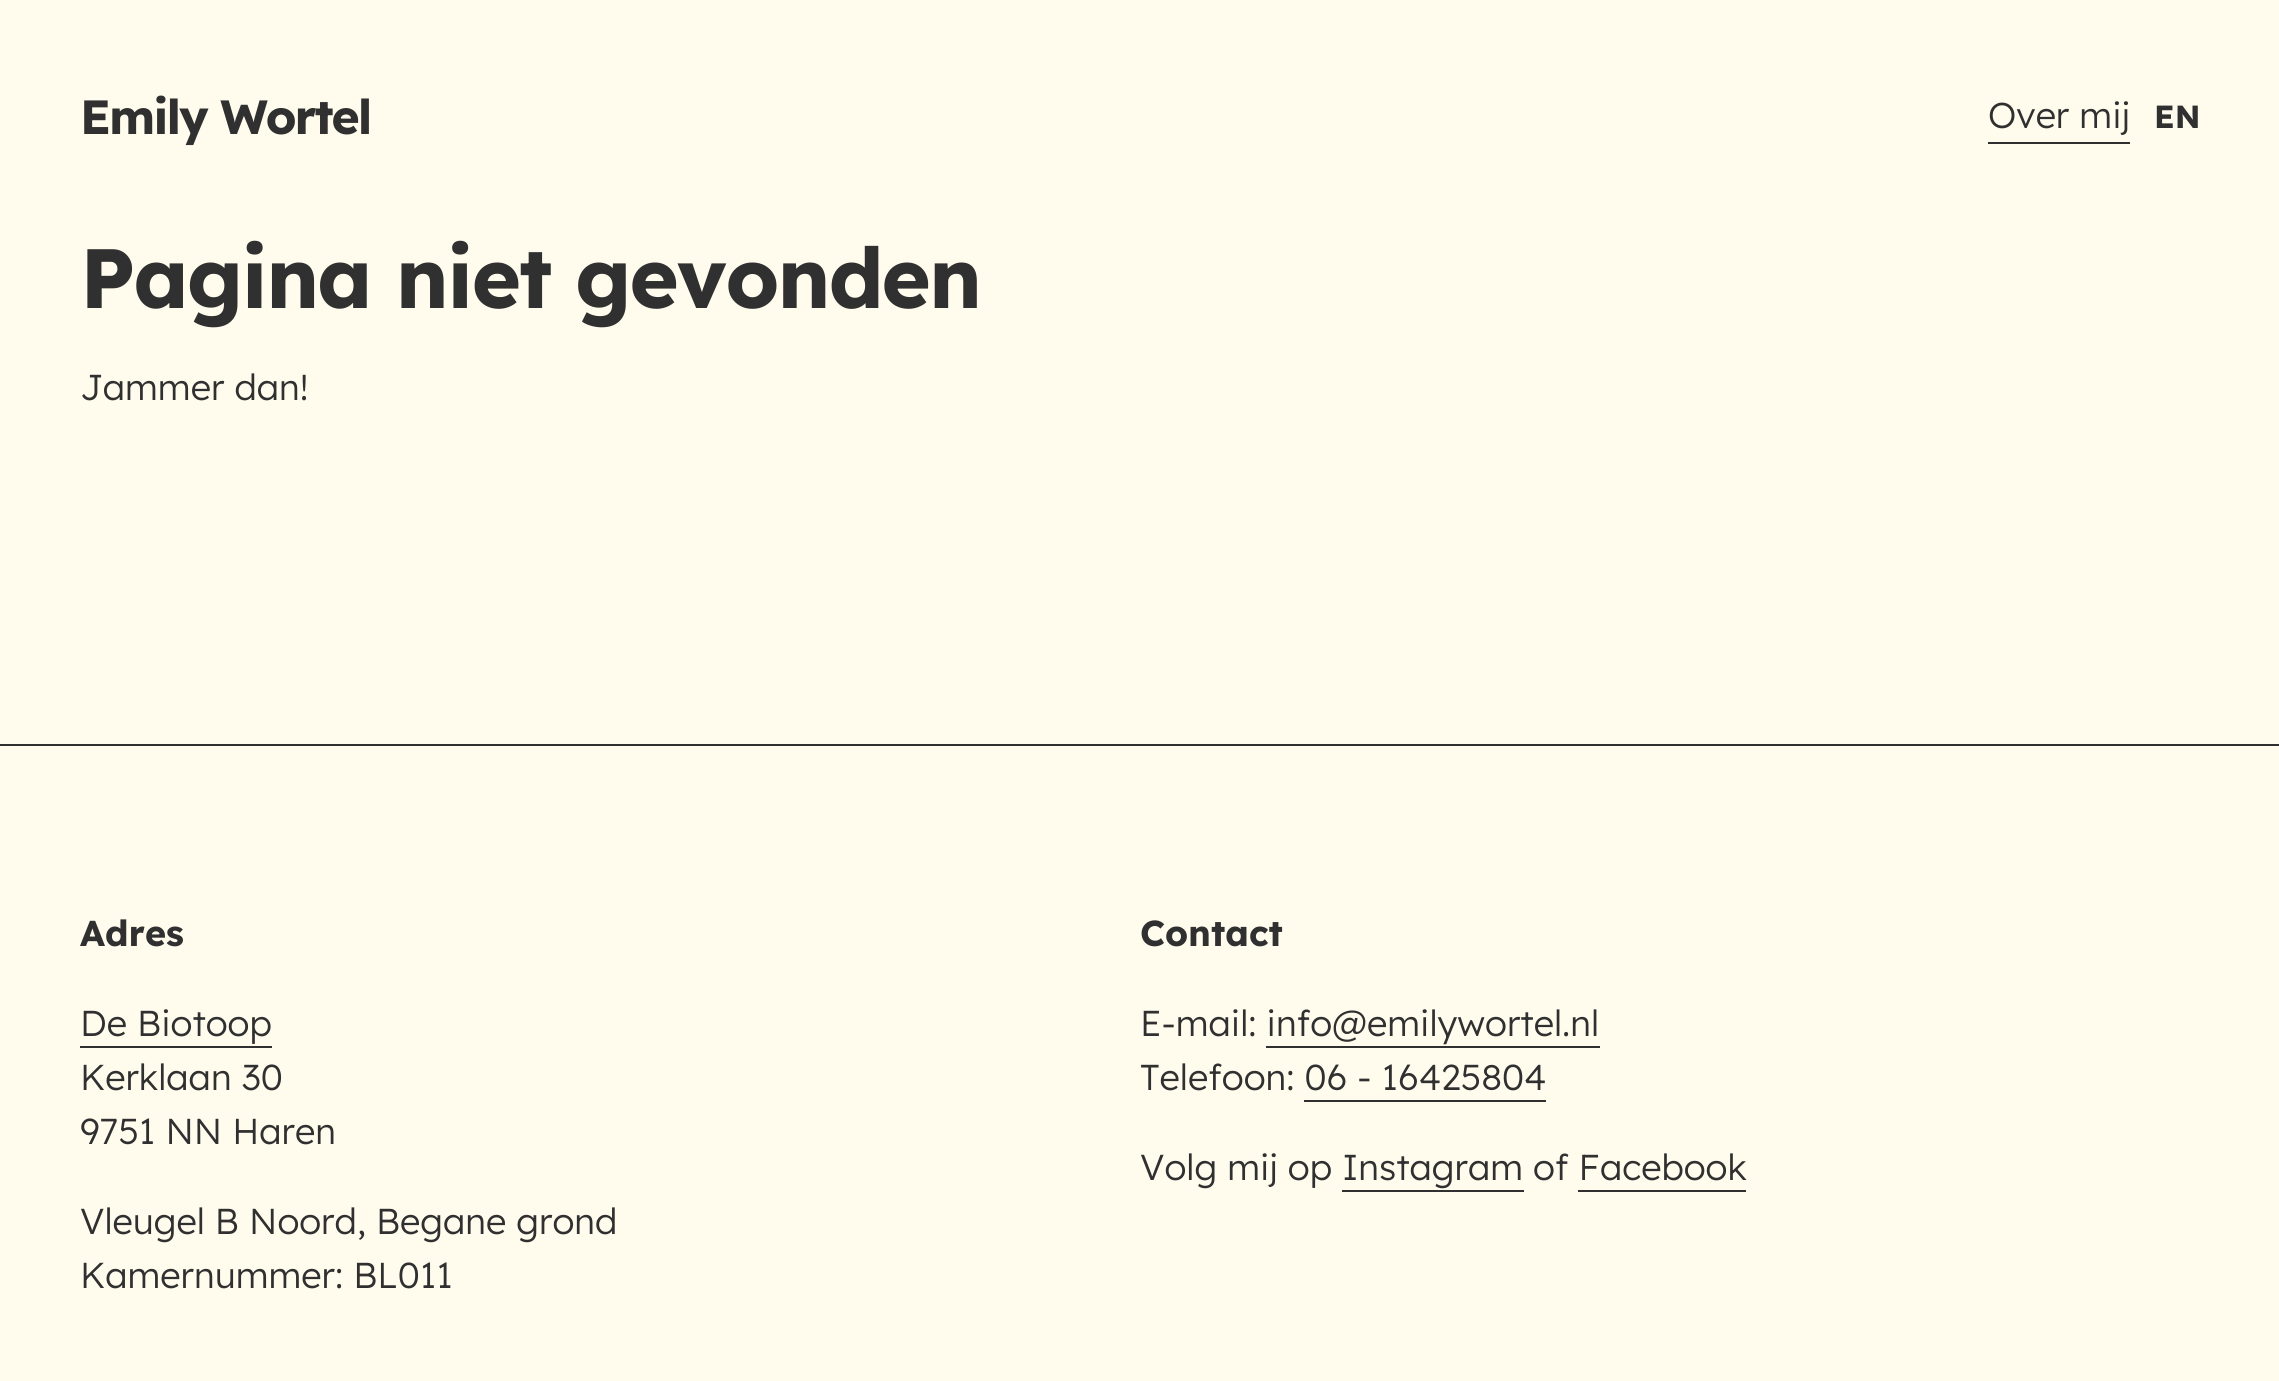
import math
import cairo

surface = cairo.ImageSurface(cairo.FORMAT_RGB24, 2279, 1381)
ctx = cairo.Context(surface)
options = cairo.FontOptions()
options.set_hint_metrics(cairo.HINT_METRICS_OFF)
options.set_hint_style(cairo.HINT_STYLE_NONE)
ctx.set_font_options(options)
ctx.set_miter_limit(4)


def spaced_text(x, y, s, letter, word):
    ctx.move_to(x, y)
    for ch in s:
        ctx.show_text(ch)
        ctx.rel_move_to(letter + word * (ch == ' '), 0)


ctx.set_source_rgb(1, 0.988, 0.933)
ctx.paint()
ctx.select_font_face("Lexend Deca", cairo.FONT_SLANT_NORMAL, cairo.FONT_WEIGHT_BOLD)
ctx.set_font_size(48)
ctx.set_source_rgb(0.188, 0.188, 0.188)
spaced_text(80, 134, "Emily Wortel", -2, 0)
ctx.rectangle(1988, 142, 142, 2)
ctx.fill()
ctx.select_font_face("Lexend Deca Light")
ctx.set_font_size(36)
ctx.move_to(1988, 128)
ctx.show_text("Over mij")
ctx.select_font_face("Lexend Deca", cairo.FONT_SLANT_NORMAL, cairo.FONT_WEIGHT_BOLD)
ctx.set_font_size(32)
ctx.move_to(2154, 128)
ctx.show_text("EN")
ctx.set_font_size(84)
spaced_text(80, 308, "Pagina niet gevonden", -2, 0)
ctx.select_font_face("Lexend Deca Light")
ctx.set_font_size(36)
ctx.move_to(80, 400)
ctx.show_text("Jammer dan!")
ctx.rectangle(0, 744, 2279, 2)
ctx.fill()
ctx.select_font_face("Lexend Deca", cairo.FONT_SLANT_NORMAL, cairo.FONT_WEIGHT_BOLD)
ctx.move_to(80, 946)
ctx.show_text("Adres")
ctx.select_font_face("Lexend Deca Light")
ctx.move_to(80, 1036)
ctx.show_text("De Biotoop")
ctx.rectangle(80, 1046, 192, 2)
ctx.fill()
ctx.move_to(80, 1090)
ctx.show_text("Kerklaan 30")
ctx.move_to(80, 1144)
ctx.show_text("9751 NN Haren")
ctx.move_to(80, 1234)
ctx.show_text("Vleugel B Noord, Begane grond")
ctx.move_to(80, 1288)
ctx.show_text("Kamernummer: BL011")
ctx.select_font_face("Lexend Deca", cairo.FONT_SLANT_NORMAL, cairo.FONT_WEIGHT_BOLD)
ctx.move_to(1140, 946)
ctx.show_text("Contact")
ctx.select_font_face("Lexend Deca Light")
ctx.move_to(1140, 1036)
ctx.show_text("E-mail: info@emilywortel.nl")
ctx.rectangle(1266, 1046, 334, 2)
ctx.fill()
ctx.move_to(1140, 1090)
ctx.show_text("Telefoon: 06 - 16425804")
ctx.rectangle(1304, 1100, 242, 2)
ctx.fill()
ctx.move_to(1140, 1180)
ctx.show_text("Volg mij op Instagram of Facebook")
ctx.rectangle(1342, 1190, 182, 2)
ctx.fill()
ctx.rectangle(1578, 1190, 168, 2)
ctx.fill()
surface.write_to_png("page.png")
